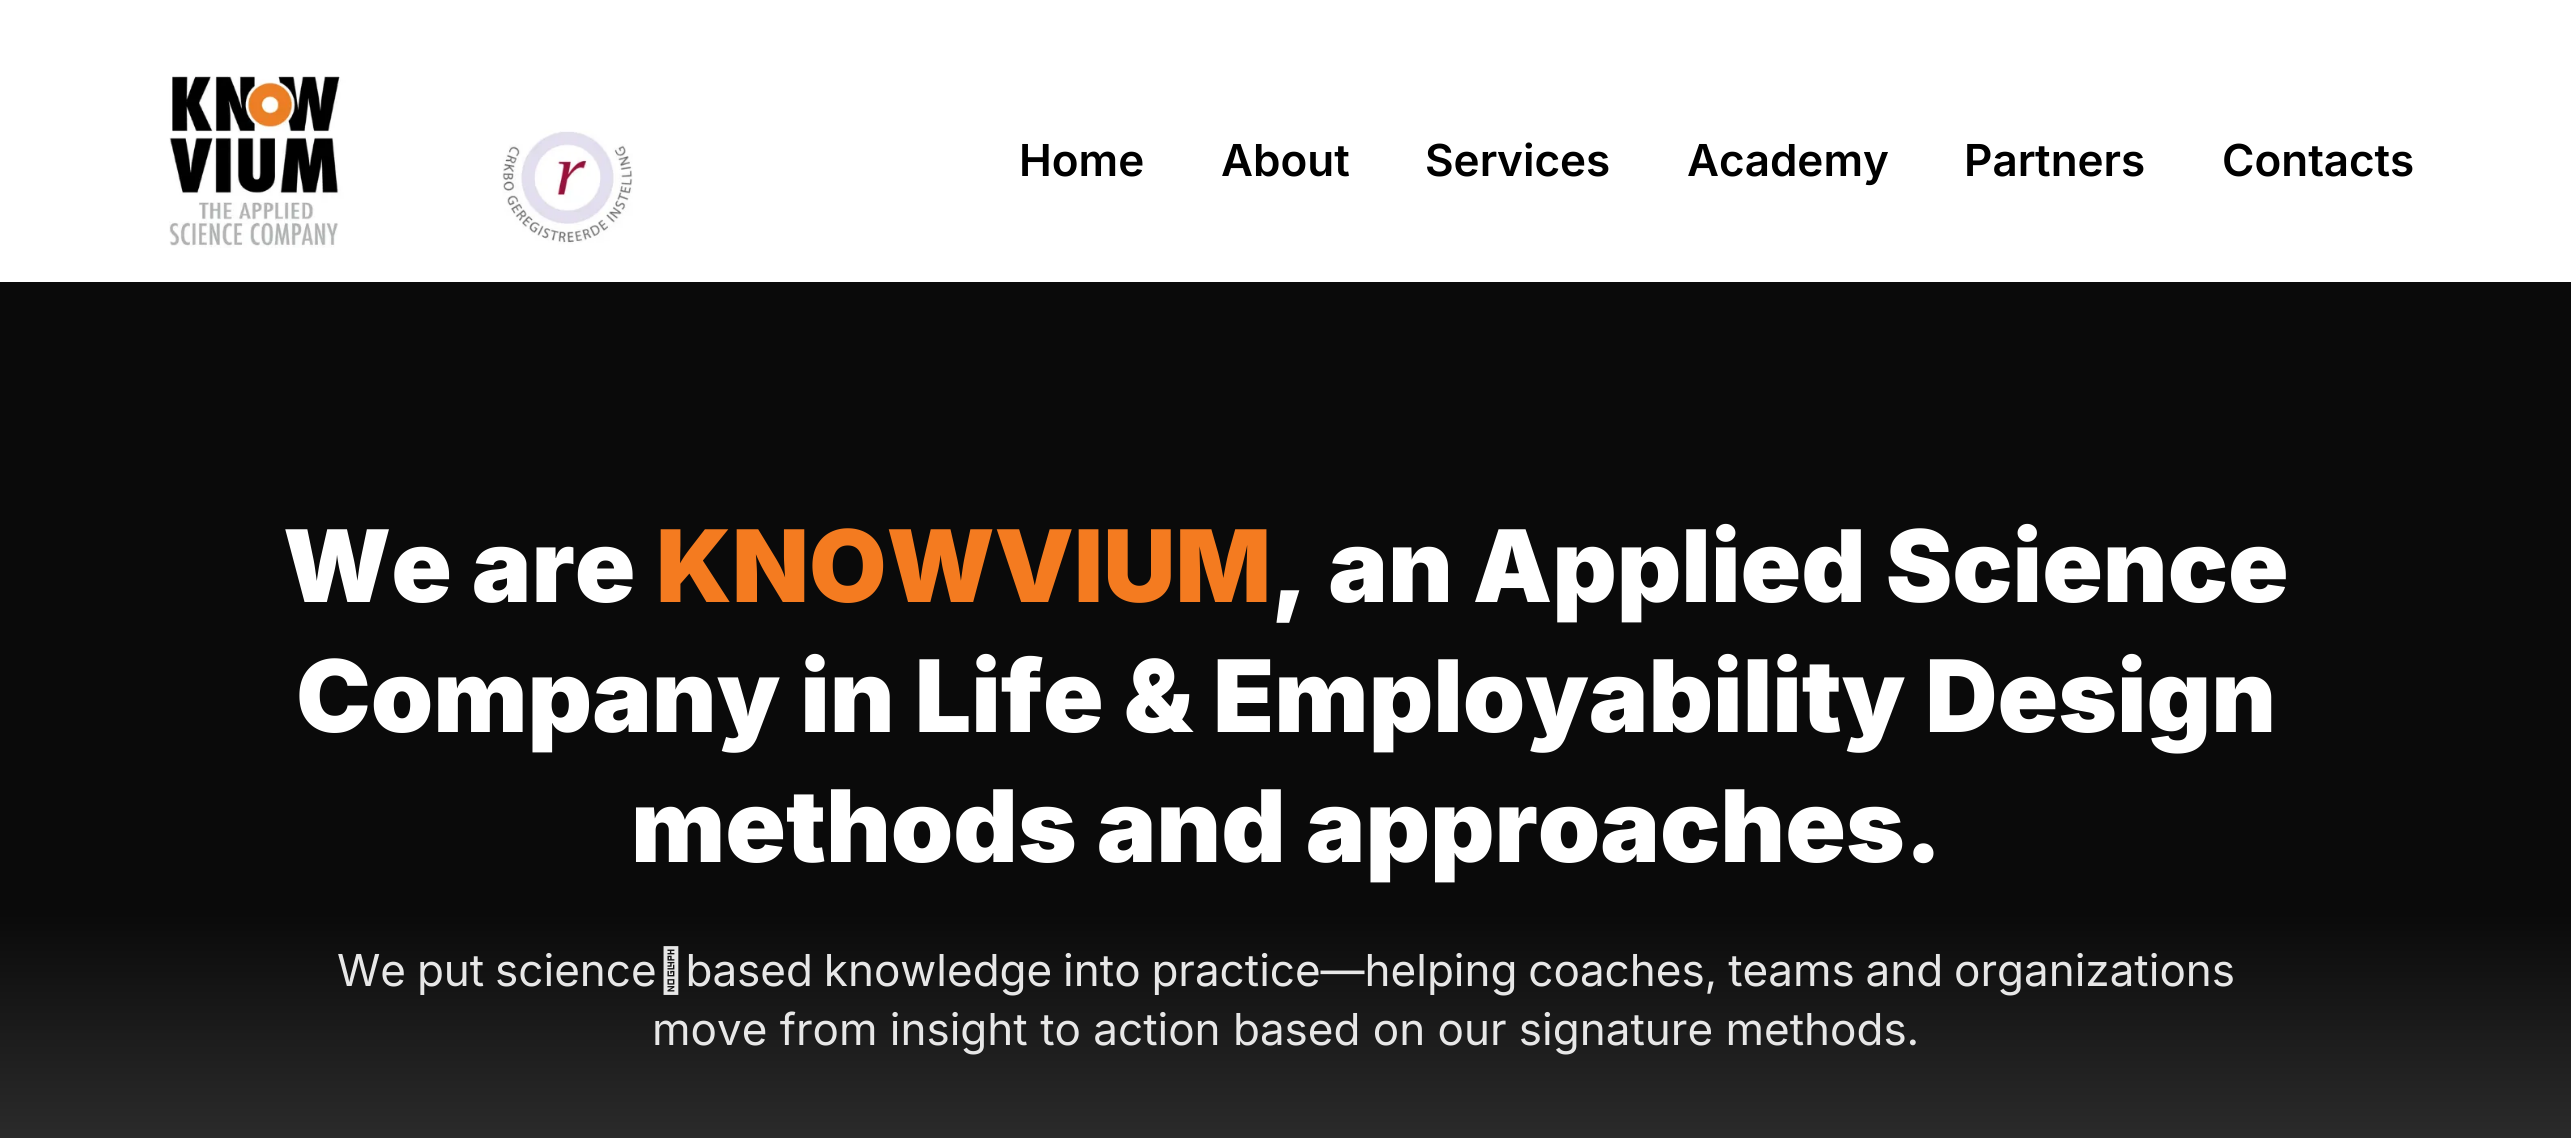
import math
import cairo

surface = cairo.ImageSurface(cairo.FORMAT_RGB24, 2571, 1138)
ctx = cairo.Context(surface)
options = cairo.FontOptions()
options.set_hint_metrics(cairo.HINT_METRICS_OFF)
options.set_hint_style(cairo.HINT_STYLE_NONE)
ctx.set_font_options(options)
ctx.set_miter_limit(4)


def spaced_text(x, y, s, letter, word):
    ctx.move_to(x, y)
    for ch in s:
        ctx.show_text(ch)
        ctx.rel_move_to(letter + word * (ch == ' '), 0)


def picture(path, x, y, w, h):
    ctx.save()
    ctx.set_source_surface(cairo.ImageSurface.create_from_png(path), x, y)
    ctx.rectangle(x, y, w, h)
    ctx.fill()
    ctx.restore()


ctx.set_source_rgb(1, 1, 1)
ctx.paint()
picture("img1.png", 169, 76, 464, 172)
ctx.select_font_face("Inter SemiBold")
ctx.set_font_size(44)
ctx.set_source_rgb(0, 0, 0)
ctx.move_to(1019, 176)
ctx.show_text("Home")
ctx.move_to(1221, 176)
ctx.show_text("About")
ctx.move_to(1425, 176)
ctx.show_text("Services")
ctx.move_to(1687, 176)
ctx.show_text("Academy")
ctx.move_to(1964, 176)
ctx.show_text("Partners")
ctx.move_to(2222, 176)
ctx.show_text("Contacts")
gradient = cairo.LinearGradient(1286, 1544, 1286, 282)
gradient.add_color_stop_rgba(0, 0.4, 0.4, 0.4, 1)
gradient.add_color_stop_rgba(0.5, 0.039, 0.039, 0.039, 1)
ctx.set_source(gradient)
ctx.rectangle(0, 282, 2571, 856)
ctx.fill()
ctx.select_font_face("Inter Black")
ctx.set_font_size(100)
ctx.set_source_rgb(1, 1, 1)
ctx.move_to(283, 602)
ctx.show_text("We are")
ctx.set_source_rgb(0.957, 0.482, 0.125)
ctx.move_to(656, 602)
ctx.show_text("KNOWVIUM")
ctx.set_source_rgb(1, 1, 1)
ctx.move_to(1271, 602)
ctx.show_text(", an Applied Science")
ctx.move_to(296, 732)
ctx.show_text("Company in Life & Employability Design")
ctx.move_to(631, 862)
ctx.show_text("methods and approaches.")
ctx.select_font_face("Inter")
ctx.set_font_size(44)
ctx.set_source_rgb(0.906, 0.906, 0.906)
spaced_text(337, 986, "We put science‑based knowledge into practice—helping coaches, teams and organizations", 0, -1.5)
ctx.move_to(652, 1045)
ctx.show_text("move from insight to action based on our signature methods.")
surface.write_to_png("page.png")
